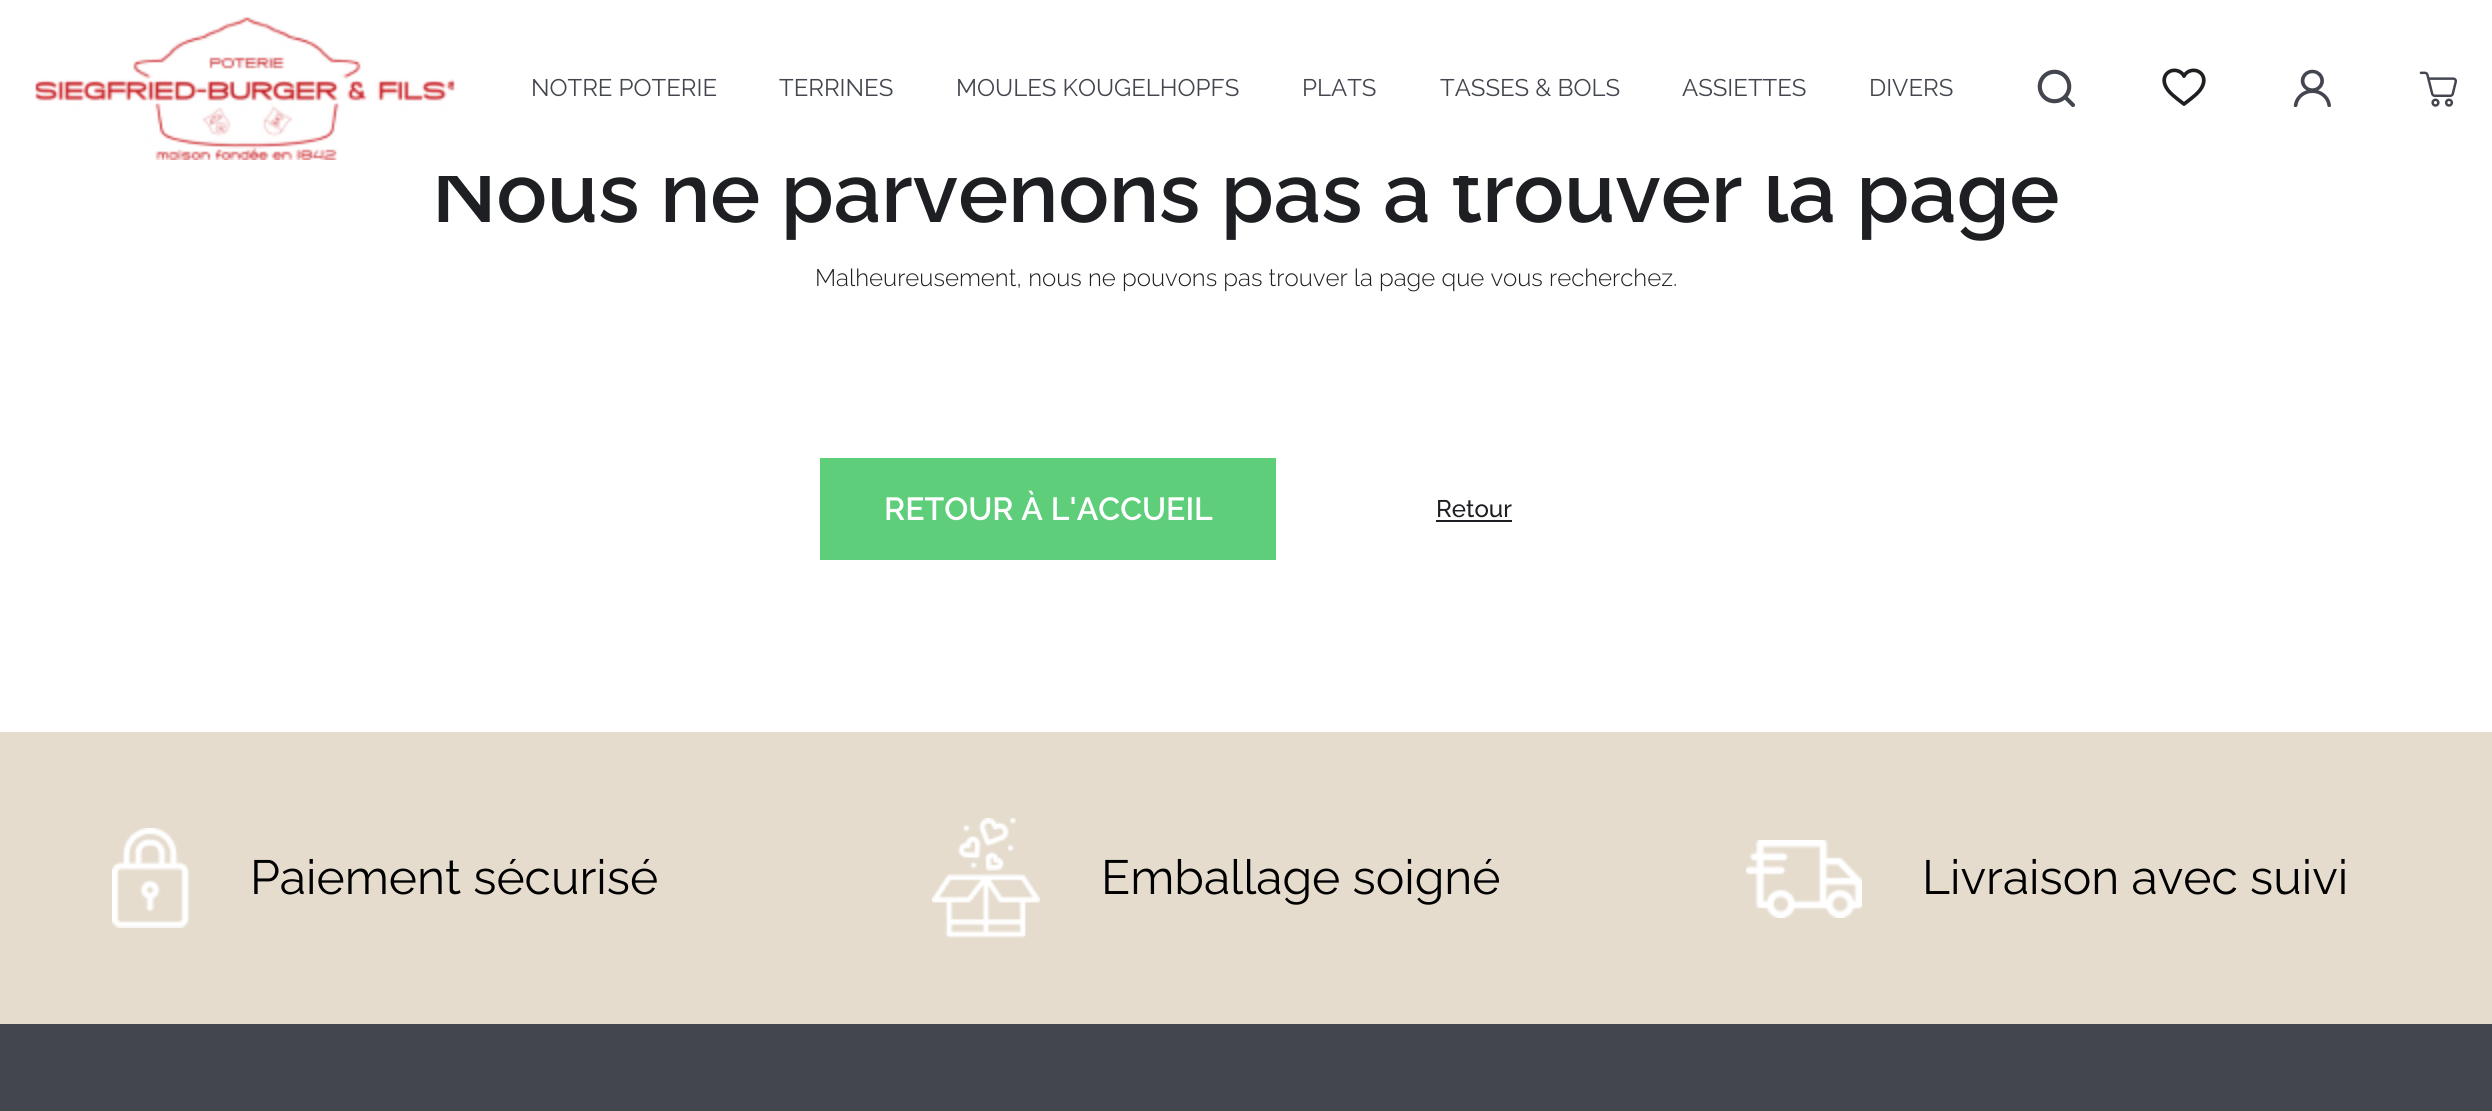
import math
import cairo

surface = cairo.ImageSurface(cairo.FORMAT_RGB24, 2492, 1111)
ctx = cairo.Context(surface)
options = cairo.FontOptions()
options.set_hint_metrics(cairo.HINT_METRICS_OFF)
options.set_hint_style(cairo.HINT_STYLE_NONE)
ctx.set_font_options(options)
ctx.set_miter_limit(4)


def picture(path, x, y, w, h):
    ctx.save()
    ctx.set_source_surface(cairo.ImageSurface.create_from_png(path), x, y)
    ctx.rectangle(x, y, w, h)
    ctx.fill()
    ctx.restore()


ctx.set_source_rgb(1, 1, 1)
ctx.paint()
ctx.select_font_face("Raleway SemiBold")
ctx.set_font_size(84)
ctx.set_source_rgb(0.114, 0.122, 0.133)
ctx.move_to(432, 222)
ctx.show_text("Nous ne parvenons pas à trouver la page")
ctx.set_source_rgb(1, 1, 1)
ctx.rectangle(438, 160, 1341, 16)
ctx.fill()
picture("img1.png", 35, 17, 420, 143)
ctx.select_font_face("Raleway")
ctx.set_font_size(24)
ctx.set_source_rgb(0.263, 0.275, 0.306)
ctx.move_to(531, 96)
ctx.show_text("NOTRE POTERIE")
ctx.move_to(779, 96)
ctx.show_text("TERRINES")
ctx.move_to(956, 96)
ctx.show_text("MOULES KOUGELHOPFS")
ctx.move_to(1302, 96)
ctx.show_text("PLATS")
ctx.move_to(1440, 96)
ctx.show_text("TASSES & BOLS")
ctx.move_to(1682, 96)
ctx.show_text("ASSIETTES")
ctx.move_to(1869, 96)
ctx.show_text("DIVERS")
picture("img2.png", 2037, 69, 38, 38)
picture("img3.png", 2162, 68, 44, 38)
picture("img4.png", 2293, 69, 38, 39)
picture("img5.png", 2419, 71, 38, 36)
ctx.select_font_face("Raleway Light")
ctx.set_source_rgb(0.114, 0.122, 0.133)
ctx.move_to(815, 286)
ctx.show_text("Malheureusement, nous ne pouvons pas trouver la page que vous recherchez.")
ctx.set_source_rgb(0.369, 0.808, 0.482)
ctx.rectangle(820, 458, 456, 102)
ctx.fill()
ctx.select_font_face("Raleway SemiBold")
ctx.set_font_size(32)
ctx.set_source_rgb(1, 1, 1)
ctx.move_to(884, 520)
ctx.show_text("RETOUR À L'ACCUEIL")
ctx.select_font_face("Raleway Medium")
ctx.set_font_size(24)
ctx.set_source_rgb(0.114, 0.122, 0.133)
ctx.move_to(1436, 517)
ctx.show_text("Retour")
ctx.rectangle(1436, 520, 76, 2)
ctx.fill()
ctx.set_source_rgb(0.898, 0.863, 0.808)
ctx.rectangle(0, 732, 2492, 292)
ctx.fill()
picture("img6.png", 112, 828, 78, 100)
ctx.select_font_face("Raleway")
ctx.set_font_size(48)
ctx.set_source_rgb(0, 0, 0)
ctx.move_to(250, 894)
ctx.show_text("Paiement sécurisé")
picture("img7.png", 932, 818, 108, 120)
ctx.move_to(1101, 894)
ctx.show_text("Emballage soigné")
picture("img8.png", 1746, 840, 116, 78)
ctx.move_to(1922, 894)
ctx.show_text("Livraison avec suivi")
ctx.set_source_rgb(0.263, 0.275, 0.306)
ctx.rectangle(0, 1024, 2492, 87)
ctx.fill()
surface.write_to_png("page.png")
